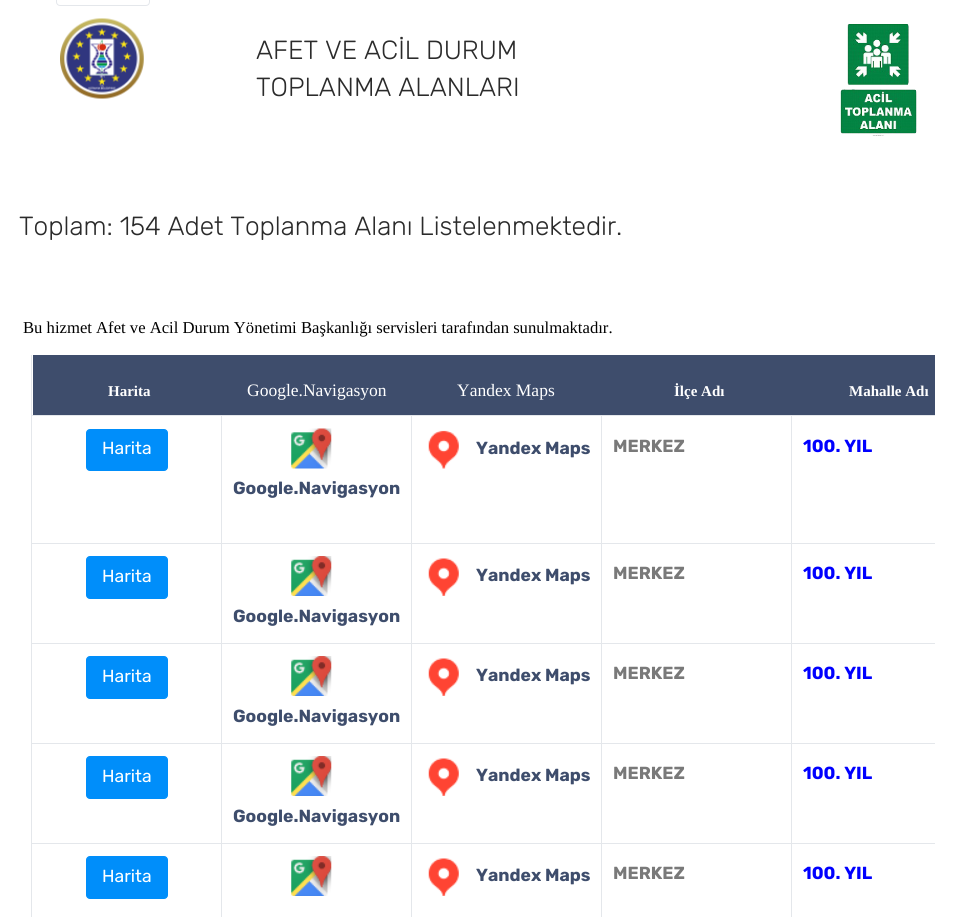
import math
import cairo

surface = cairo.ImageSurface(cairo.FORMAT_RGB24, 966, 917)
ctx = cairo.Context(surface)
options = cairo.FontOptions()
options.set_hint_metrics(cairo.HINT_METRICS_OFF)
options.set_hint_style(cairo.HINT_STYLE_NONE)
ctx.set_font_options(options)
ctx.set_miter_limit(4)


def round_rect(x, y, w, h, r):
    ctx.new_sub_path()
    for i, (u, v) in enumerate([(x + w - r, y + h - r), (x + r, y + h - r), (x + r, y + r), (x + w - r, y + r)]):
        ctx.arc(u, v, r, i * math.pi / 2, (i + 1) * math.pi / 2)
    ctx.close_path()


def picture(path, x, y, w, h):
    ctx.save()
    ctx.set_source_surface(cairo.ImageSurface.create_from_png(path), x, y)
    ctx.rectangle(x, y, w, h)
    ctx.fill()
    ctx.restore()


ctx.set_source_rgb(1, 1, 1)
ctx.paint()
round_rect(56.5, -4.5, 93, 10, 3.5)
ctx.set_source_rgb(0.894, 0.906, 0.918)
ctx.set_line_width(1)
ctx.stroke()
picture("img1.png", 60, 18, 84, 81)
ctx.select_font_face("Rubik Light")
ctx.set_font_size(26.25)
ctx.set_source_rgb(0.169, 0.169, 0.169)
ctx.move_to(256, 59)
ctx.show_text("AFET VE ACİL DURUM")
ctx.move_to(256, 96)
ctx.show_text("TOPLANMA ALANLARI")
picture("img2.png", 840, 24, 77, 112)
ctx.move_to(19, 235)
ctx.show_text("Toplam: 154 Adet Toplanma Alanı Listelenmektedir.")
ctx.select_font_face("Liberation Serif")
ctx.set_font_size(16.65)
ctx.set_source_rgb(0, 0, 0)
ctx.move_to(23, 333)
ctx.show_text("Bu hizmet Afet ve Acil Durum Yönetimi Başkanlığı servisleri tarafından sunulmaktadır.")
ctx.set_source_rgb(0.243, 0.302, 0.424)
ctx.rectangle(33, 355, 902, 60)
ctx.fill()
ctx.select_font_face("Liberation Serif", cairo.FONT_SLANT_NORMAL, cairo.FONT_WEIGHT_BOLD)
ctx.set_font_size(15)
ctx.set_source_rgb(1, 1, 1)
ctx.move_to(108, 396)
ctx.show_text("Harita")
ctx.select_font_face("Liberation Serif")
ctx.set_font_size(17.5)
ctx.move_to(247, 396)
ctx.show_text("Google.Navigasyon")
ctx.move_to(457, 396)
ctx.show_text("Yandex Maps")
ctx.select_font_face("Liberation Serif", cairo.FONT_SLANT_NORMAL, cairo.FONT_WEIGHT_BOLD)
ctx.set_font_size(15)
ctx.move_to(674, 396)
ctx.show_text("İlçe Adı")
ctx.move_to(849, 396)
ctx.show_text("Mahalle Adı")
ctx.set_source_rgb(0.894, 0.906, 0.918)
ctx.rectangle(791, 415, 144, 1)
ctx.fill()
ctx.rectangle(791, 543, 144, 1)
ctx.fill()
ctx.rectangle(791, 643, 144, 1)
ctx.fill()
ctx.rectangle(791, 743, 144, 1)
ctx.fill()
ctx.rectangle(791, 843, 144, 1)
ctx.fill()
ctx.rectangle(791, 843, 1, 74)
ctx.fill()
ctx.rectangle(601, 843, 192, 1)
ctx.fill()
ctx.rectangle(791, 743, 1, 101)
ctx.fill()
ctx.rectangle(601, 743, 192, 1)
ctx.fill()
ctx.rectangle(791, 643, 1, 101)
ctx.fill()
ctx.rectangle(601, 643, 192, 1)
ctx.fill()
ctx.rectangle(791, 543, 1, 101)
ctx.fill()
ctx.rectangle(601, 543, 192, 1)
ctx.fill()
ctx.rectangle(791, 415, 1, 129)
ctx.fill()
ctx.rectangle(601, 415, 192, 1)
ctx.fill()
ctx.rectangle(601, 843, 1, 74)
ctx.fill()
ctx.rectangle(411, 843, 192, 1)
ctx.fill()
ctx.rectangle(601, 743, 1, 101)
ctx.fill()
ctx.rectangle(411, 743, 192, 1)
ctx.fill()
ctx.rectangle(601, 643, 1, 101)
ctx.fill()
ctx.rectangle(411, 643, 192, 1)
ctx.fill()
ctx.rectangle(601, 543, 1, 101)
ctx.fill()
ctx.rectangle(411, 543, 192, 1)
ctx.fill()
ctx.rectangle(601, 415, 1, 129)
ctx.fill()
ctx.rectangle(411, 415, 192, 1)
ctx.fill()
ctx.rectangle(411, 843, 1, 74)
ctx.fill()
ctx.rectangle(221, 843, 192, 1)
ctx.fill()
ctx.rectangle(411, 743, 1, 101)
ctx.fill()
ctx.rectangle(221, 743, 192, 1)
ctx.fill()
ctx.rectangle(411, 643, 1, 101)
ctx.fill()
ctx.rectangle(221, 643, 192, 1)
ctx.fill()
ctx.rectangle(411, 543, 1, 101)
ctx.fill()
ctx.rectangle(221, 543, 192, 1)
ctx.fill()
ctx.rectangle(411, 415, 1, 129)
ctx.fill()
ctx.rectangle(221, 415, 192, 1)
ctx.fill()
ctx.rectangle(221, 843, 1, 74)
ctx.fill()
ctx.rectangle(31, 843, 192, 1)
ctx.fill()
ctx.rectangle(221, 743, 1, 101)
ctx.fill()
ctx.rectangle(31, 743, 192, 1)
ctx.fill()
ctx.rectangle(221, 643, 1, 101)
ctx.fill()
ctx.rectangle(31, 643, 192, 1)
ctx.fill()
ctx.rectangle(221, 543, 1, 101)
ctx.fill()
ctx.rectangle(31, 543, 192, 1)
ctx.fill()
ctx.rectangle(221, 415, 1, 129)
ctx.fill()
ctx.rectangle(31, 415, 192, 1)
ctx.fill()
ctx.rectangle(31, 843, 1, 74)
ctx.fill()
ctx.rectangle(31, 743, 1, 101)
ctx.fill()
ctx.rectangle(31, 643, 1, 101)
ctx.fill()
ctx.rectangle(31, 543, 1, 101)
ctx.fill()
ctx.rectangle(31, 355, 1, 189)
ctx.fill()
ctx.set_source_rgb(0, 0.557, 0.98)
round_rect(86.5, 429.5, 81, 41, 3.5)
ctx.fill_preserve()
ctx.stroke()
ctx.select_font_face("Rubik")
ctx.set_font_size(17.5)
ctx.set_source_rgb(1, 1, 1)
ctx.move_to(102, 454)
ctx.show_text("Harita")
picture("img3.png", 428, 430, 31, 39)
ctx.select_font_face("Rubik", cairo.FONT_SLANT_NORMAL, cairo.FONT_WEIGHT_BOLD)
ctx.set_source_rgb(0.243, 0.302, 0.424)
ctx.move_to(476, 454)
ctx.show_text("Yandex Maps")
ctx.set_source_rgb(0.475, 0.475, 0.475)
ctx.move_to(613, 452)
ctx.show_text("MERKEZ")
ctx.set_source_rgb(0, 0, 1)
ctx.move_to(803, 452)
ctx.show_text("100. YIL")
picture("img4.png", 291, 428, 41, 41)
ctx.set_source_rgb(0.243, 0.302, 0.424)
ctx.move_to(233, 494)
ctx.show_text("Google.Navigasyon")
ctx.set_source_rgb(0, 0.557, 0.98)
round_rect(86.5, 556.5, 81, 42, 3.5)
ctx.fill_preserve()
ctx.stroke()
ctx.select_font_face("Rubik")
ctx.set_source_rgb(1, 1, 1)
ctx.move_to(102, 582)
ctx.show_text("Harita")
picture("img5.png", 428, 558, 31, 38)
ctx.select_font_face("Rubik", cairo.FONT_SLANT_NORMAL, cairo.FONT_WEIGHT_BOLD)
ctx.set_source_rgb(0.243, 0.302, 0.424)
ctx.move_to(476, 581)
ctx.show_text("Yandex Maps")
ctx.set_source_rgb(0.475, 0.475, 0.475)
ctx.move_to(613, 579)
ctx.show_text("MERKEZ")
ctx.set_source_rgb(0, 0, 1)
ctx.move_to(803, 579)
ctx.show_text("100. YIL")
picture("img6.png", 291, 556, 41, 40)
ctx.set_source_rgb(0.243, 0.302, 0.424)
ctx.move_to(233, 622)
ctx.show_text("Google.Navigasyon")
ctx.set_source_rgb(0, 0.557, 0.98)
round_rect(86.5, 656.5, 81, 42, 3.5)
ctx.fill_preserve()
ctx.stroke()
ctx.select_font_face("Rubik")
ctx.set_source_rgb(1, 1, 1)
ctx.move_to(102, 682)
ctx.show_text("Harita")
picture("img5.png", 428, 658, 31, 38)
ctx.select_font_face("Rubik", cairo.FONT_SLANT_NORMAL, cairo.FONT_WEIGHT_BOLD)
ctx.set_source_rgb(0.243, 0.302, 0.424)
ctx.move_to(476, 681)
ctx.show_text("Yandex Maps")
ctx.set_source_rgb(0.475, 0.475, 0.475)
ctx.move_to(613, 679)
ctx.show_text("MERKEZ")
ctx.set_source_rgb(0, 0, 1)
ctx.move_to(803, 679)
ctx.show_text("100. YIL")
picture("img6.png", 291, 656, 41, 40)
ctx.set_source_rgb(0.243, 0.302, 0.424)
ctx.move_to(233, 722)
ctx.show_text("Google.Navigasyon")
ctx.set_source_rgb(0, 0.557, 0.98)
round_rect(86.5, 756.5, 81, 42, 3.5)
ctx.fill_preserve()
ctx.stroke()
ctx.select_font_face("Rubik")
ctx.set_source_rgb(1, 1, 1)
ctx.move_to(102, 782)
ctx.show_text("Harita")
picture("img5.png", 428, 758, 31, 38)
ctx.select_font_face("Rubik", cairo.FONT_SLANT_NORMAL, cairo.FONT_WEIGHT_BOLD)
ctx.set_source_rgb(0.243, 0.302, 0.424)
ctx.move_to(476, 781)
ctx.show_text("Yandex Maps")
ctx.set_source_rgb(0.475, 0.475, 0.475)
ctx.move_to(613, 779)
ctx.show_text("MERKEZ")
ctx.set_source_rgb(0, 0, 1)
ctx.move_to(803, 779)
ctx.show_text("100. YIL")
picture("img6.png", 291, 756, 41, 40)
ctx.set_source_rgb(0.243, 0.302, 0.424)
ctx.move_to(233, 822)
ctx.show_text("Google.Navigasyon")
ctx.set_source_rgb(0, 0.557, 0.98)
round_rect(86.5, 856.5, 81, 42, 3.5)
ctx.fill_preserve()
ctx.stroke()
ctx.select_font_face("Rubik")
ctx.set_source_rgb(1, 1, 1)
ctx.move_to(102, 882)
ctx.show_text("Harita")
picture("img6.png", 291, 856, 41, 40)
picture("img5.png", 428, 858, 31, 38)
ctx.select_font_face("Rubik", cairo.FONT_SLANT_NORMAL, cairo.FONT_WEIGHT_BOLD)
ctx.set_source_rgb(0.243, 0.302, 0.424)
ctx.move_to(476, 881)
ctx.show_text("Yandex Maps")
ctx.set_source_rgb(0.475, 0.475, 0.475)
ctx.move_to(613, 879)
ctx.show_text("MERKEZ")
ctx.set_source_rgb(0, 0, 1)
ctx.move_to(803, 879)
ctx.show_text("100. YIL")
surface.write_to_png("page.png")
